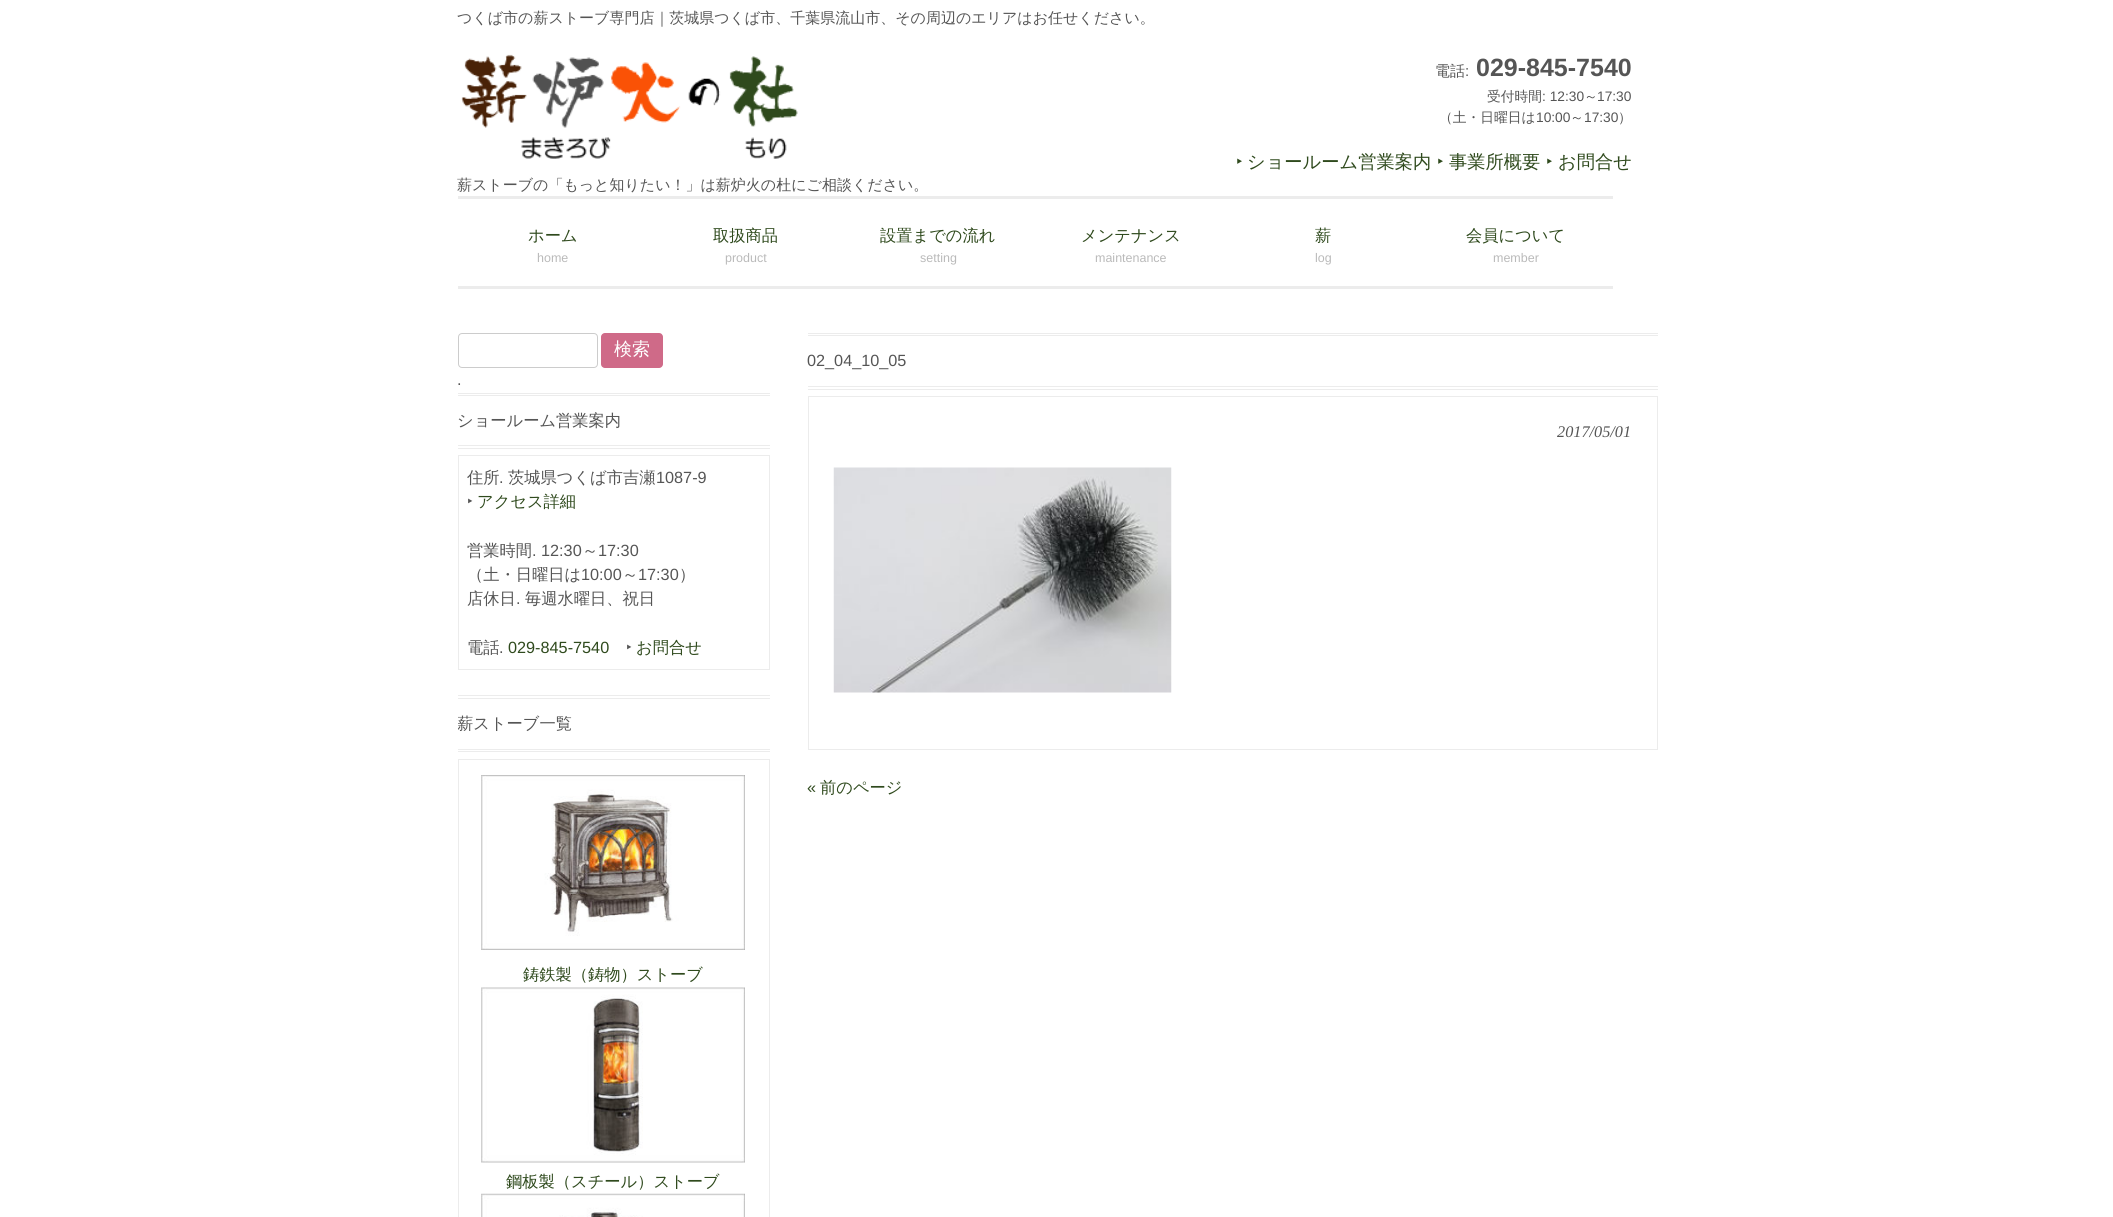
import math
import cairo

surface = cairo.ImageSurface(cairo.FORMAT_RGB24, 2113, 1217)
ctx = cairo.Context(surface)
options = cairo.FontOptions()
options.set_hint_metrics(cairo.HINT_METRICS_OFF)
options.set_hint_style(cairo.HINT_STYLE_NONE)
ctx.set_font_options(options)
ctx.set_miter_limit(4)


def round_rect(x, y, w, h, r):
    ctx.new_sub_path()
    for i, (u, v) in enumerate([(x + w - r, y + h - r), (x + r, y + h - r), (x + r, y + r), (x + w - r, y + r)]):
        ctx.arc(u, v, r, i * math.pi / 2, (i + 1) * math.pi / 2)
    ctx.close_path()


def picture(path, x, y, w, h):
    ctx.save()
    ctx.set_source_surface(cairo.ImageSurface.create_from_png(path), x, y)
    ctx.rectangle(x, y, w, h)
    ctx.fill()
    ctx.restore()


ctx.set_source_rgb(1, 1, 1)
ctx.paint()
ctx.select_font_face("WenQuanYi Zen Hei Medium")
ctx.set_font_size(15)
ctx.set_source_rgb(0.333, 0.333, 0.333)
ctx.move_to(457, 23)
ctx.show_text("つくば市の薪ストーブ専門店｜茨城県つくば市、千葉県流山市、その周辺のエリアはお任せください。")
ctx.move_to(1435, 76)
ctx.show_text("電話")
ctx.select_font_face("Liberation Sans")
ctx.move_to(1465, 76)
ctx.show_text(":")
ctx.select_font_face("Liberation Sans", cairo.FONT_SLANT_NORMAL, cairo.FONT_WEIGHT_BOLD)
ctx.set_font_size(25)
ctx.move_to(1476, 76)
ctx.show_text("029-845-7540")
ctx.select_font_face("WenQuanYi Zen Hei Medium")
ctx.set_font_size(13.75)
ctx.move_to(1487, 101)
ctx.show_text("受付時間")
ctx.select_font_face("Liberation Sans")
ctx.move_to(1542, 101)
ctx.show_text(": 12:30")
ctx.select_font_face("WenQuanYi Zen Hei Medium")
ctx.move_to(1584, 101)
ctx.show_text("～")
ctx.select_font_face("Liberation Sans")
ctx.move_to(1597, 101)
ctx.show_text("17:30")
ctx.select_font_face("WenQuanYi Zen Hei Medium")
ctx.move_to(1439, 122)
ctx.show_text("（土・日曜日は")
ctx.select_font_face("Liberation Sans")
ctx.move_to(1536, 122)
ctx.show_text("10:00")
ctx.select_font_face("WenQuanYi Zen Hei Medium")
ctx.move_to(1570, 122)
ctx.show_text("～")
ctx.select_font_face("Liberation Sans")
ctx.move_to(1584, 122)
ctx.show_text("17:30")
ctx.select_font_face("WenQuanYi Zen Hei Medium")
ctx.move_to(1618, 122)
ctx.show_text("）")
ctx.select_font_face("Noto Sans")
ctx.set_font_size(18.25)
ctx.set_source_rgb(0.184, 0.29, 0.114)
ctx.move_to(1236, 168)
ctx.show_text("‣")
ctx.select_font_face("WenQuanYi Zen Hei Medium")
ctx.move_to(1247, 168)
ctx.show_text("ショールーム営業案内")
ctx.select_font_face("Noto Sans")
ctx.move_to(1437, 168)
ctx.show_text("‣")
ctx.select_font_face("WenQuanYi Zen Hei Medium")
ctx.move_to(1449, 168)
ctx.show_text("事業所概要")
ctx.select_font_face("Noto Sans")
ctx.move_to(1546, 168)
ctx.show_text("‣")
ctx.select_font_face("WenQuanYi Zen Hei Medium")
ctx.move_to(1558, 168)
ctx.show_text("お問合せ")
picture("img1.png", 461, 54, 337, 105)
ctx.set_font_size(15)
ctx.set_source_rgb(0.333, 0.333, 0.333)
ctx.move_to(457, 190)
ctx.show_text("薪ストーブの「もっと知りたい！」は薪炉火の杜にご相談ください。")
ctx.set_source_rgb(0.922, 0.922, 0.922)
ctx.rectangle(458, 196, 1155, 3)
ctx.fill()
ctx.rectangle(458, 286, 1155, 3)
ctx.fill()
ctx.set_font_size(16.25)
ctx.set_source_rgb(0.184, 0.29, 0.114)
ctx.move_to(528, 241)
ctx.show_text("ホーム")
ctx.select_font_face("Liberation Sans")
ctx.set_font_size(12.5)
ctx.set_source_rgb(0.729, 0.729, 0.729)
ctx.move_to(537, 262)
ctx.show_text("home")
ctx.select_font_face("WenQuanYi Zen Hei Medium")
ctx.set_font_size(16.25)
ctx.set_source_rgb(0.184, 0.29, 0.114)
ctx.move_to(713, 241)
ctx.show_text("取扱商品")
ctx.select_font_face("Liberation Sans")
ctx.set_font_size(12.5)
ctx.set_source_rgb(0.729, 0.729, 0.729)
ctx.move_to(725, 262)
ctx.show_text("product")
ctx.select_font_face("WenQuanYi Zen Hei Medium")
ctx.set_font_size(16.25)
ctx.set_source_rgb(0.184, 0.29, 0.114)
ctx.move_to(880, 241)
ctx.show_text("設置までの流れ")
ctx.select_font_face("Liberation Sans")
ctx.set_font_size(12.5)
ctx.set_source_rgb(0.729, 0.729, 0.729)
ctx.move_to(920, 262)
ctx.show_text("setting")
ctx.select_font_face("WenQuanYi Zen Hei Medium")
ctx.set_font_size(16.25)
ctx.set_source_rgb(0.184, 0.29, 0.114)
ctx.move_to(1081, 241)
ctx.show_text("メンテナンス")
ctx.select_font_face("Liberation Sans")
ctx.set_font_size(12.5)
ctx.set_source_rgb(0.729, 0.729, 0.729)
ctx.move_to(1095, 262)
ctx.show_text("maintenance")
ctx.select_font_face("WenQuanYi Zen Hei Medium")
ctx.set_font_size(16.25)
ctx.set_source_rgb(0.184, 0.29, 0.114)
ctx.move_to(1315, 241)
ctx.show_text("薪")
ctx.select_font_face("Liberation Sans")
ctx.set_font_size(12.5)
ctx.set_source_rgb(0.729, 0.729, 0.729)
ctx.move_to(1315, 262)
ctx.show_text("log")
ctx.select_font_face("WenQuanYi Zen Hei Medium")
ctx.set_font_size(16.25)
ctx.set_source_rgb(0.184, 0.29, 0.114)
ctx.move_to(1466, 241)
ctx.show_text("会員について")
ctx.select_font_face("Liberation Sans")
ctx.set_font_size(12.5)
ctx.set_source_rgb(0.729, 0.729, 0.729)
ctx.move_to(1493, 262)
ctx.show_text("member")
round_rect(458.5, 333.5, 139, 34, 3.5)
ctx.set_source_rgb(0.8, 0.8, 0.8)
ctx.set_line_width(1)
ctx.stroke()
ctx.set_source_rgb(0.812, 0.416, 0.533)
round_rect(601, 333, 62, 35, 4)
ctx.fill()
ctx.select_font_face("WenQuanYi Zen Hei Medium")
ctx.set_font_size(18)
ctx.set_source_rgb(1, 1, 1)
ctx.move_to(614, 355)
ctx.show_text("検索")
ctx.select_font_face("Liberation Sans")
ctx.set_font_size(16.25)
ctx.set_source_rgb(0.333, 0.333, 0.333)
ctx.move_to(457, 385)
ctx.show_text(".")
ctx.set_source_rgb(0.922, 0.922, 0.922)
ctx.rectangle(458, 393, 312, 1)
ctx.fill()
ctx.rectangle(458, 395, 312, 1)
ctx.fill()
ctx.rectangle(458, 445, 312, 1)
ctx.fill()
ctx.rectangle(458, 448, 312, 1)
ctx.fill()
ctx.select_font_face("WenQuanYi Zen Hei Medium")
ctx.set_source_rgb(0.333, 0.333, 0.333)
ctx.move_to(457, 426)
ctx.show_text("ショールーム営業案内")
ctx.rectangle(458.5, 455.5, 311, 214)
ctx.set_source_rgb(0.922, 0.922, 0.922)
ctx.stroke()
ctx.set_source_rgb(0.333, 0.333, 0.333)
ctx.move_to(467, 483)
ctx.show_text("住所")
ctx.select_font_face("Liberation Sans")
ctx.move_to(499, 483)
ctx.show_text(".")
ctx.select_font_face("WenQuanYi Zen Hei Medium")
ctx.move_to(508, 483)
ctx.show_text("茨城県つくば市吉瀬")
ctx.select_font_face("Liberation Sans")
ctx.move_to(656, 483)
ctx.show_text("1087-9")
ctx.select_font_face("Noto Sans")
ctx.move_to(467, 507)
ctx.show_text("‣")
ctx.select_font_face("WenQuanYi Zen Hei Medium")
ctx.set_source_rgb(0.184, 0.29, 0.114)
ctx.move_to(477, 507)
ctx.show_text("アクセス詳細")
ctx.set_source_rgb(0.333, 0.333, 0.333)
ctx.move_to(467, 556)
ctx.show_text("営業時間")
ctx.select_font_face("Liberation Sans")
ctx.move_to(532, 556)
ctx.show_text(". 12:30")
ctx.select_font_face("WenQuanYi Zen Hei Medium")
ctx.move_to(582, 556)
ctx.show_text("～")
ctx.select_font_face("Liberation Sans")
ctx.move_to(598, 556)
ctx.show_text("17:30")
ctx.select_font_face("WenQuanYi Zen Hei Medium")
ctx.move_to(467, 580)
ctx.show_text("（土・日曜日は")
ctx.select_font_face("Liberation Sans")
ctx.move_to(581, 580)
ctx.show_text("10:00")
ctx.select_font_face("WenQuanYi Zen Hei Medium")
ctx.move_to(622, 580)
ctx.show_text("～")
ctx.select_font_face("Liberation Sans")
ctx.move_to(638, 580)
ctx.show_text("17:30")
ctx.select_font_face("WenQuanYi Zen Hei Medium")
ctx.move_to(679, 580)
ctx.show_text("）")
ctx.move_to(467, 604)
ctx.show_text("店休日")
ctx.select_font_face("Liberation Sans")
ctx.move_to(516, 604)
ctx.show_text(".")
ctx.select_font_face("WenQuanYi Zen Hei Medium")
ctx.move_to(525, 604)
ctx.show_text("毎週水曜日、祝日")
ctx.move_to(467, 653)
ctx.show_text("電話")
ctx.select_font_face("Liberation Sans")
ctx.set_source_rgb(0.184, 0.29, 0.114)
ctx.move_to(508, 653)
ctx.show_text("029-845-7540")
ctx.select_font_face("Noto Sans")
ctx.set_source_rgb(0.333, 0.333, 0.333)
ctx.move_to(626, 653)
ctx.show_text("‣")
ctx.select_font_face("WenQuanYi Zen Hei Medium")
ctx.set_source_rgb(0.184, 0.29, 0.114)
ctx.move_to(636, 653)
ctx.show_text("お問合せ")
ctx.select_font_face("Liberation Sans")
ctx.set_source_rgb(0.333, 0.333, 0.333)
ctx.move_to(499, 653)
ctx.show_text(".")
ctx.set_source_rgb(0.922, 0.922, 0.922)
ctx.rectangle(458, 695, 312, 1)
ctx.fill()
ctx.rectangle(458, 698, 312, 1)
ctx.fill()
ctx.rectangle(458, 749, 312, 1)
ctx.fill()
ctx.rectangle(458, 751, 312, 1)
ctx.fill()
ctx.save()
ctx.rectangle(458, 314, 312, 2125)
ctx.clip()
ctx.select_font_face("WenQuanYi Zen Hei Medium")
ctx.set_source_rgb(0.333, 0.333, 0.333)
ctx.move_to(457, 729)
ctx.show_text("薪ストーブ一覧")
ctx.restore()
ctx.rectangle(458.5, 759.5, 311, 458)
ctx.stroke()
picture("img2.png", 481, 775, 264, 175)
ctx.select_font_face("WenQuanYi Zen Hei Medium")
ctx.set_source_rgb(0.184, 0.29, 0.114)
ctx.move_to(523, 980)
ctx.show_text("鋳鉄製（鋳物）ストーブ")
picture("img3.png", 481, 987, 264, 176)
ctx.move_to(506, 1187)
ctx.show_text("鋼板製（スチール）ストーブ")
picture("img4.png", 481, 1193, 264, 24)
ctx.set_source_rgb(0.922, 0.922, 0.922)
ctx.rectangle(808, 333, 850, 1)
ctx.fill()
ctx.rectangle(808, 335, 850, 1)
ctx.fill()
ctx.rectangle(808, 386, 850, 1)
ctx.fill()
ctx.rectangle(808, 389, 850, 1)
ctx.fill()
ctx.select_font_face("Liberation Sans")
ctx.set_source_rgb(0.333, 0.333, 0.333)
ctx.move_to(807, 366)
ctx.show_text("02_04_10_05")
ctx.rectangle(808.5, 396.5, 849, 353)
ctx.set_source_rgb(0.922, 0.922, 0.922)
ctx.stroke()
ctx.select_font_face("Liberation Serif", cairo.FONT_SLANT_ITALIC)
ctx.set_source_rgb(0.333, 0.333, 0.333)
ctx.move_to(1557, 437)
ctx.show_text("2017/05/01")
picture("img5.png", 833, 467, 339, 226)
ctx.select_font_face("Liberation Sans")
ctx.set_source_rgb(0.184, 0.29, 0.114)
ctx.move_to(807, 793)
ctx.show_text("«")
ctx.select_font_face("WenQuanYi Zen Hei Medium")
ctx.move_to(820, 793)
ctx.show_text("前のページ")
surface.write_to_png("page.png")
